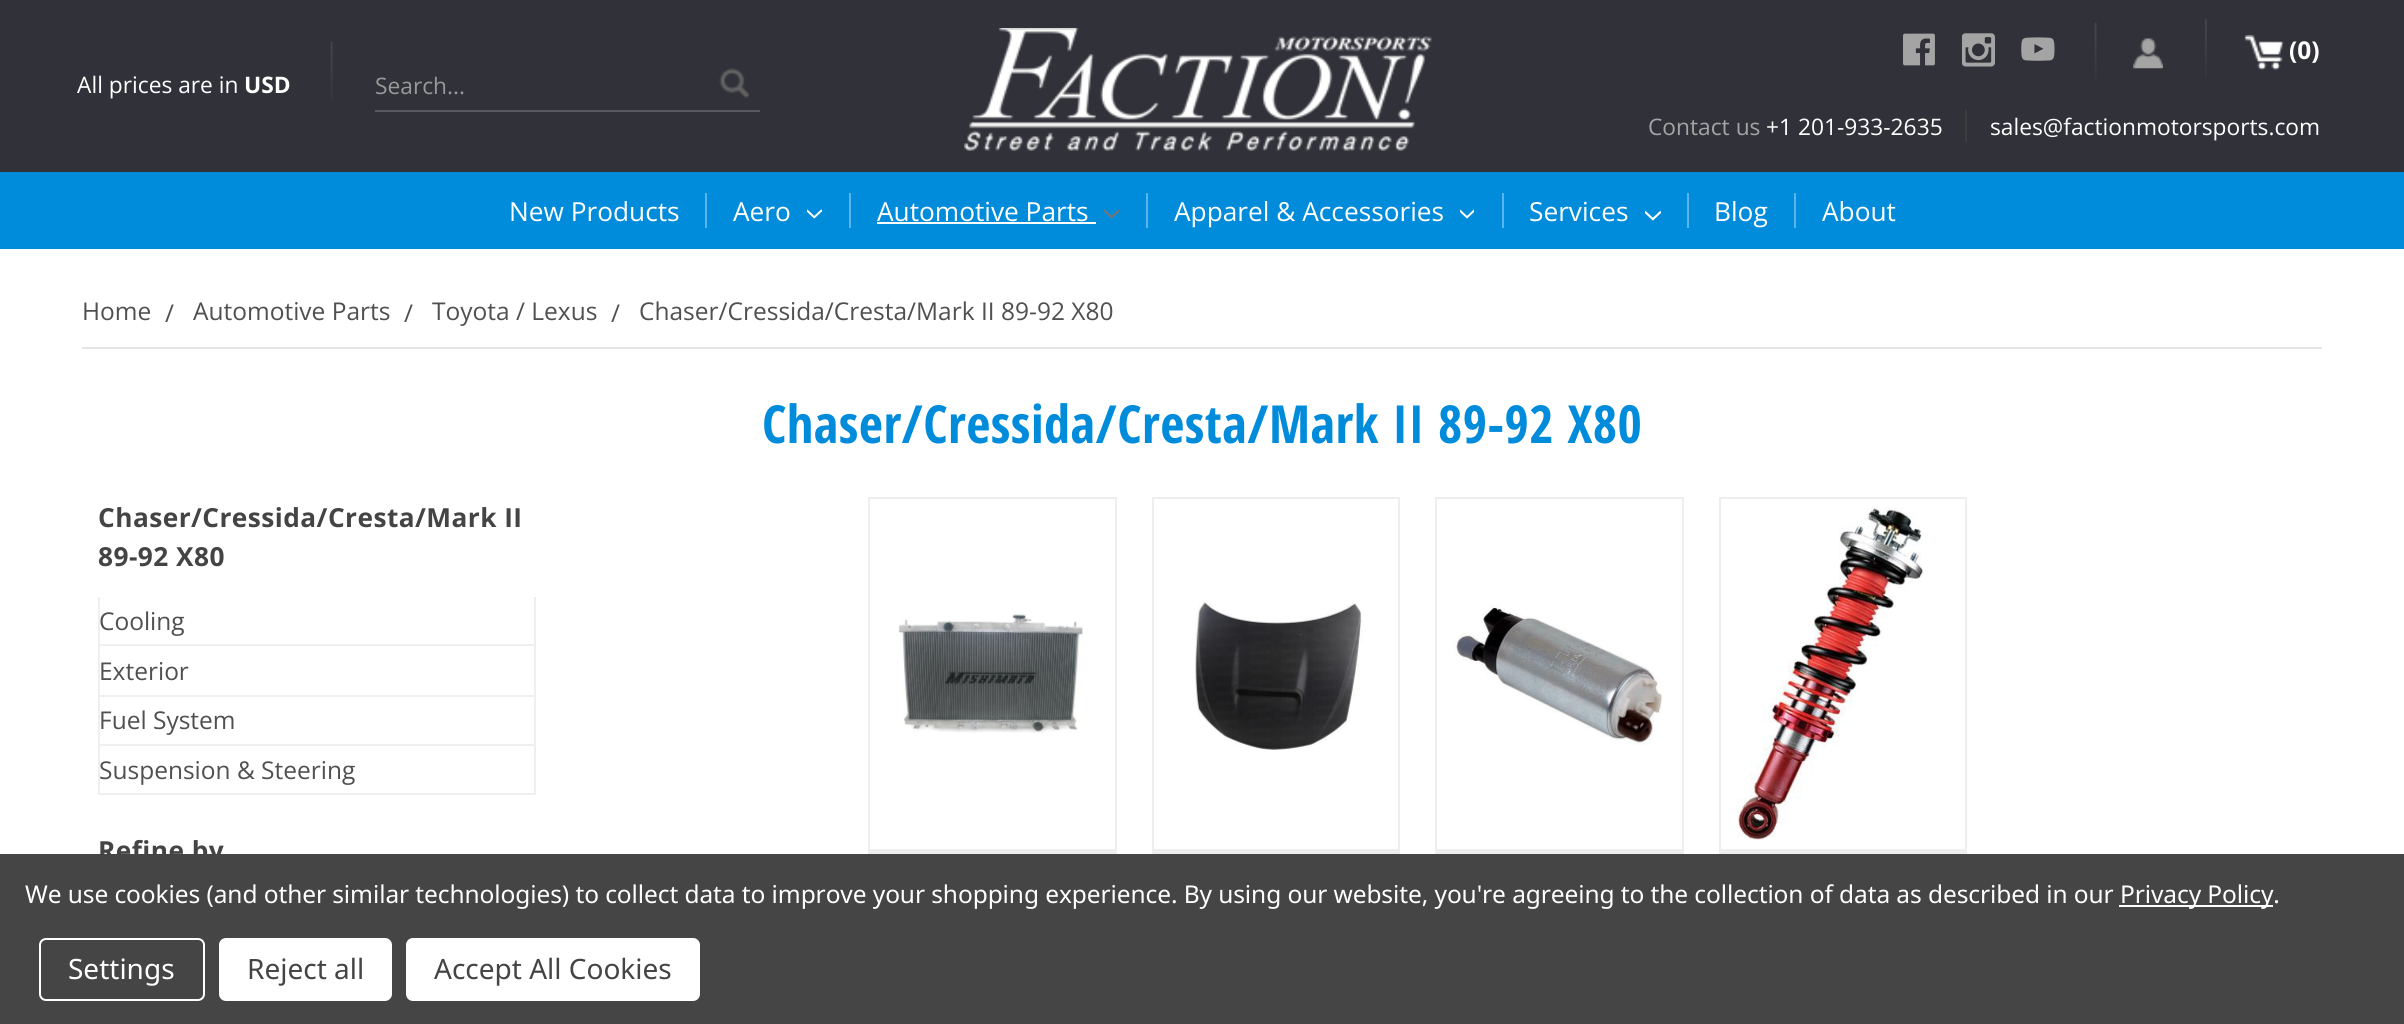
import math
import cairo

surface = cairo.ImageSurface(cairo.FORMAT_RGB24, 2404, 1024)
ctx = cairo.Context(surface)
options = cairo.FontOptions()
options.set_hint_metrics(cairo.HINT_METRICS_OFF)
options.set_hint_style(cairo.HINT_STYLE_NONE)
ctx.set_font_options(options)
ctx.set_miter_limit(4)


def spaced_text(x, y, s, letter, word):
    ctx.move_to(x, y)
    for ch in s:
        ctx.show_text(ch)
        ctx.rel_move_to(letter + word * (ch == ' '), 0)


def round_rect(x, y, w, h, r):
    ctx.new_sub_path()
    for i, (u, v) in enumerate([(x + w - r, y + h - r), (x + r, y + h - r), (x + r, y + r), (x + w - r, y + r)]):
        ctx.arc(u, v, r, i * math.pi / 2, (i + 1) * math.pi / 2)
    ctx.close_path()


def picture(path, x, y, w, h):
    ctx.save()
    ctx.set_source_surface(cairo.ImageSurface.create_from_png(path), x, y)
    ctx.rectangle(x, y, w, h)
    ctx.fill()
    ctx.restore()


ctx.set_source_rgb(1, 1, 1)
ctx.paint()
ctx.set_source_rgb(0.192, 0.192, 0.224)
ctx.rectangle(0, 0, 2404, 172)
ctx.fill()
ctx.select_font_face("Open Sans")
ctx.set_font_size(22.75)
ctx.set_source_rgb(1, 1, 1)
ctx.move_to(77, 93)
ctx.show_text("All prices are in")
ctx.select_font_face("Open Sans", cairo.FONT_SLANT_NORMAL, cairo.FONT_WEIGHT_BOLD)
ctx.move_to(244, 93)
ctx.show_text("USD")
picture("img1.png", 330, 42, 3, 59)
ctx.set_source_rgb(0.345, 0.345, 0.369)
ctx.rectangle(375, 110, 385, 2)
ctx.fill()
ctx.select_font_face("Open Sans")
ctx.set_source_rgb(0.6, 0.6, 0.6)
ctx.move_to(375, 94)
ctx.show_text("Search...")
picture("img2.png", 719, 68, 30, 30)
picture("img3.png", 964, 28, 468, 123)
picture("img4.png", 1903, 33, 32, 33)
picture("img5.png", 1962, 33, 33, 34)
picture("img6.png", 2021, 37, 34, 24)
picture("img7.png", 2094, 22, 3, 58)
picture("img8.png", 2133, 38, 30, 31)
picture("img9.png", 2205, 19, 2, 59)
picture("img10.png", 2244, 35, 40, 35)
ctx.select_font_face("Open Sans", cairo.FONT_SLANT_NORMAL, cairo.FONT_WEIGHT_BOLD)
ctx.set_font_size(24.5)
ctx.set_source_rgb(1, 1, 1)
ctx.move_to(2289, 59)
ctx.show_text("(0)")
ctx.select_font_face("Open Sans")
ctx.set_font_size(22.75)
ctx.set_source_rgb(0.643, 0.643, 0.643)
ctx.move_to(1648, 135)
ctx.show_text("Contact us")
ctx.set_source_rgb(1, 1, 1)
ctx.move_to(1766, 135)
ctx.show_text("+1 201-933-2635")
ctx.set_source_rgb(0.239, 0.239, 0.251)
ctx.rectangle(1965, 110, 2, 32)
ctx.fill()
ctx.set_source_rgb(1, 1, 1)
ctx.move_to(1990, 135)
ctx.show_text("sales@factionmotorsports.com")
ctx.set_source_rgb(0, 0.545, 0.859)
ctx.rectangle(0, 172, 2404, 77)
ctx.fill()
ctx.set_font_size(26.25)
ctx.set_source_rgb(1, 1, 1)
ctx.move_to(509, 221)
ctx.show_text("New Products")
ctx.set_source_rgb(0.349, 0.714, 0.925)
ctx.rectangle(705, 193, 2, 35)
ctx.fill()
ctx.set_source_rgb(1, 1, 1)
ctx.move_to(733, 221)
ctx.show_text("Aero")
picture("img11.png", 807, 209, 15, 10)
ctx.set_source_rgb(0.349, 0.714, 0.925)
ctx.rectangle(849, 193, 2, 35)
ctx.fill()
ctx.set_source_rgb(1, 1, 1)
ctx.move_to(877, 221)
ctx.show_text("Automotive Parts")
ctx.rectangle(877, 222, 219, 2)
ctx.fill()
picture("img12.png", 1104, 209, 15, 10)
ctx.set_source_rgb(0.349, 0.714, 0.925)
ctx.rectangle(1146, 193, 2, 35)
ctx.fill()
ctx.set_source_rgb(1, 1, 1)
ctx.move_to(1174, 221)
ctx.show_text("Apparel & Accessories")
picture("img13.png", 1460, 209, 14, 10)
ctx.set_source_rgb(0.349, 0.714, 0.925)
ctx.rectangle(1502, 193, 2, 35)
ctx.fill()
ctx.set_source_rgb(1, 1, 1)
ctx.move_to(1529, 221)
ctx.show_text("Services")
picture("img14.png", 1645, 211, 16, 10)
ctx.set_source_rgb(0.349, 0.714, 0.925)
ctx.rectangle(1687, 193, 2, 35)
ctx.fill()
ctx.set_source_rgb(1, 1, 1)
ctx.move_to(1714, 221)
ctx.show_text("Blog")
ctx.set_source_rgb(0.349, 0.714, 0.925)
ctx.rectangle(1794, 193, 2, 35)
ctx.fill()
ctx.set_source_rgb(1, 1, 1)
ctx.move_to(1822, 221)
ctx.show_text("About")
ctx.set_source_rgb(0.898, 0.898, 0.898)
ctx.rectangle(82, 347, 2240, 2)
ctx.fill()
ctx.set_font_size(24.5)
ctx.set_source_rgb(0.314, 0.314, 0.314)
ctx.move_to(82, 320)
ctx.show_text("Home")
ctx.move_to(165, 322)
ctx.show_text("/")
ctx.move_to(193, 320)
ctx.show_text("Automotive Parts")
ctx.move_to(404, 322)
ctx.show_text("/")
ctx.move_to(432, 320)
ctx.show_text("Toyota / Lexus")
ctx.move_to(611, 322)
ctx.show_text("/")
ctx.move_to(639, 320)
ctx.show_text("Chaser/Cressida/Cresta/Mark II 89-92 X80")
ctx.select_font_face("Open Sans Condensed", cairo.FONT_SLANT_NORMAL, cairo.FONT_WEIGHT_BOLD)
ctx.set_font_size(52.5)
ctx.set_source_rgb(0, 0.545, 0.859)
spaced_text(762, 443, "Chaser/Cressida/Cresta/Mark II 89-92 X80", 0.45, 0)
ctx.select_font_face("Open Sans", cairo.FONT_SLANT_NORMAL, cairo.FONT_WEIGHT_BOLD)
ctx.set_font_size(26.25)
ctx.set_source_rgb(0.267, 0.267, 0.267)
spaced_text(98, 527, "Chaser/Cressida/Cresta/Mark II", 0.45, 0)
spaced_text(98, 566, "89-92 X80", 0.45, 0)
ctx.set_source_rgb(0.937, 0.937, 0.937)
ctx.rectangle(534, 597, 2, 198)
ctx.fill()
ctx.rectangle(98, 597, 2, 198)
ctx.fill()
ctx.rectangle(100, 644, 434, 2)
ctx.fill()
ctx.select_font_face("Open Sans")
ctx.set_font_size(24.5)
ctx.set_source_rgb(0.314, 0.314, 0.314)
ctx.move_to(99, 630)
ctx.show_text("Cooling")
ctx.set_source_rgb(0.937, 0.937, 0.937)
ctx.rectangle(100, 695, 434, 2)
ctx.fill()
ctx.set_source_rgb(0.314, 0.314, 0.314)
ctx.move_to(99, 680)
ctx.show_text("Exterior")
ctx.set_source_rgb(0.937, 0.937, 0.937)
ctx.rectangle(100, 744, 434, 2)
ctx.fill()
ctx.set_source_rgb(0.314, 0.314, 0.314)
ctx.move_to(99, 729)
ctx.show_text("Fuel System")
ctx.set_source_rgb(0.937, 0.937, 0.937)
ctx.rectangle(100, 793, 434, 2)
ctx.fill()
ctx.set_source_rgb(0.314, 0.314, 0.314)
ctx.move_to(99, 779)
ctx.show_text("Suspension & Steering")
ctx.select_font_face("Open Sans", cairo.FONT_SLANT_NORMAL, cairo.FONT_WEIGHT_BOLD)
ctx.set_font_size(26.25)
ctx.set_source_rgb(0.267, 0.267, 0.267)
spaced_text(98, 860, "Refine by", 0.45, 0)
ctx.rectangle(869, 498, 247, 457)
ctx.set_source_rgb(0.933, 0.933, 0.933)
ctx.stroke()
picture("img15.png", 898, 613, 185, 120)
ctx.rectangle(870, 849, 245, 5)
ctx.fill()
ctx.rectangle(1153, 498, 246, 457)
ctx.stroke()
picture("img16.png", 1195, 601, 168, 149)
ctx.rectangle(1153, 849, 245, 5)
ctx.fill()
ctx.rectangle(1436, 498, 247, 457)
ctx.stroke()
picture("img17.png", 1454, 605, 209, 140)
ctx.rectangle(1437, 849, 245, 5)
ctx.fill()
ctx.rectangle(1720, 498, 246, 457)
ctx.stroke()
picture("img18.png", 1737, 507, 187, 333)
ctx.rectangle(1720, 849, 245, 5)
ctx.fill()
ctx.set_source_rgb(0.271, 0.271, 0.271)
ctx.rectangle(0, 854, 2404, 170)
ctx.fill()
ctx.select_font_face("Noto Sans")
ctx.set_font_size(24.5)
ctx.set_source_rgb(1, 1, 1)
spaced_text(25, 903, "We use cookies (and other similar technologies) to collect data to improve your shopping experience. By using our website, you're agreeing to the collection of data as described in our", -0.09, 0)
ctx.rectangle(2119, 905, 154, 2)
ctx.fill()
spaced_text(2120, 903, "Privacy Policy.", -0.09, 0)
round_rect(40, 939, 164, 61, 6)
ctx.stroke()
ctx.set_font_size(28)
ctx.move_to(68, 979)
ctx.show_text("Settings")
round_rect(219, 938, 173, 63, 7)
ctx.fill()
ctx.set_source_rgb(0.267, 0.267, 0.267)
ctx.move_to(247, 979)
ctx.show_text("Reject all")
ctx.set_source_rgb(1, 1, 1)
round_rect(406, 938, 294, 63, 7)
ctx.fill()
ctx.set_source_rgb(0.267, 0.267, 0.267)
ctx.move_to(434, 979)
ctx.show_text("Accept All Cookies")
surface.write_to_png("page.png")
